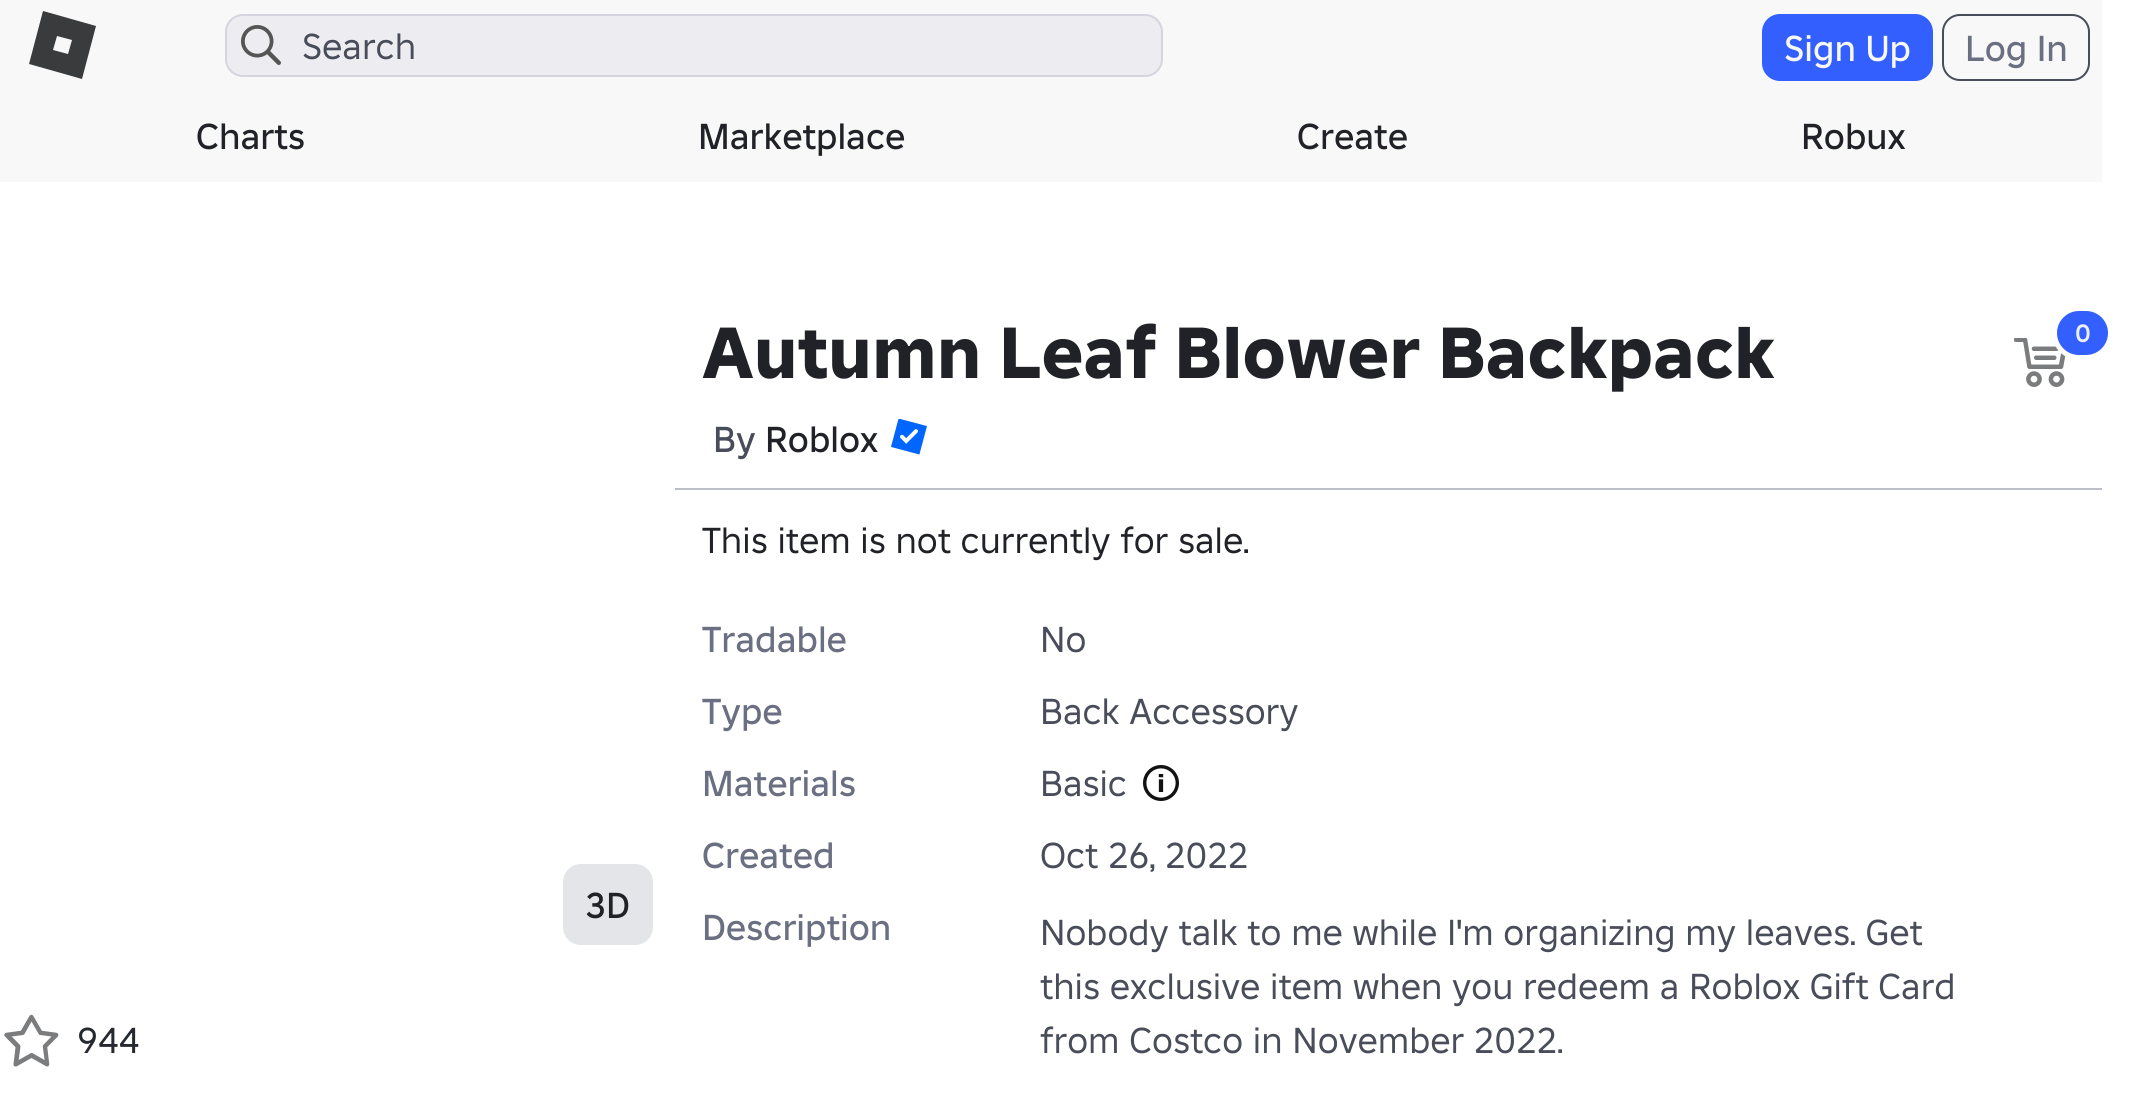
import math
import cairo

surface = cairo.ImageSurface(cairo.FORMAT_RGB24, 2135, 1101)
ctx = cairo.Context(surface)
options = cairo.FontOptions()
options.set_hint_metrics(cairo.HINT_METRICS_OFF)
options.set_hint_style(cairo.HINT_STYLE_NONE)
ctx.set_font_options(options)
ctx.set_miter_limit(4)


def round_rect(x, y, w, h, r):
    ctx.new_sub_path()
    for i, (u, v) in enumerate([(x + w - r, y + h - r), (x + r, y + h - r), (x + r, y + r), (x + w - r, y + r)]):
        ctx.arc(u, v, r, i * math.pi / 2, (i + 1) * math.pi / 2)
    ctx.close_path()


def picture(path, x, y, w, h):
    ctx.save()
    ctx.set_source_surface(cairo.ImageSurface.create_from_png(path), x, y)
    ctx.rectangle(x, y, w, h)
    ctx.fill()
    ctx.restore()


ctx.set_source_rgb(1, 1, 1)
ctx.paint()
ctx.set_source_rgb(0.969, 0.969, 0.973)
ctx.rectangle(0, 0, 2102, 182)
ctx.fill()
ctx.set_source_rgb(0.224, 0.231, 0.239)
ctx.new_path()
ctx.move_to(43, 11)
ctx.line_to(29, 64)
ctx.line_to(82, 79)
ctx.line_to(96, 26)
ctx.close_path()
ctx.move_to(68, 54)
ctx.line_to(53, 50)
ctx.line_to(57, 36)
ctx.line_to(72, 40)
ctx.close_path()
ctx.fill()
ctx.set_source_rgb(1, 1, 1)
round_rect(225, 14, 938, 63, 18)
ctx.fill()
ctx.set_source_rgba(0.106, 0.145, 0.294, 0.08)
round_rect(225, 14, 938, 63, 18)
ctx.fill()
round_rect(226, 15, 936, 61, 17)
ctx.set_source_rgba(0.106, 0.145, 0.294, 0.12)
ctx.stroke()
picture("img1.png", 241, 25, 40, 40)
ctx.select_font_face("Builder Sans")
ctx.set_font_size(36)
ctx.set_source_rgb(0.286, 0.302, 0.353)
ctx.move_to(302, 59)
ctx.show_text("Search")
ctx.set_source_rgb(0.2, 0.373, 1)
round_rect(1762, 14, 171, 67, 18)
ctx.fill()
ctx.select_font_face("Builder Sans Medium")
ctx.set_source_rgb(0.969, 0.969, 0.973)
ctx.move_to(1784, 61)
ctx.show_text("Sign Up")
round_rect(1943, 15, 146, 65, 17)
ctx.set_source_rgb(0.286, 0.302, 0.353)
ctx.stroke()
ctx.set_source_rgb(0.416, 0.435, 0.506)
ctx.move_to(1965, 61)
ctx.show_text("Log In")
ctx.set_source_rgb(0.125, 0.133, 0.153)
ctx.move_to(196, 149)
ctx.show_text("Charts")
ctx.move_to(698, 149)
ctx.show_text("Marketplace")
ctx.move_to(1297, 149)
ctx.show_text("Create")
ctx.move_to(1801, 149)
ctx.show_text("Robux")
ctx.set_source_rgb(0.894, 0.898, 0.914)
round_rect(563, 864, 90, 81, 18)
ctx.fill()
ctx.set_source_rgb(0.125, 0.133, 0.153)
ctx.move_to(585, 918)
ctx.show_text("3D")
ctx.set_source_rgb(0.737, 0.745, 0.784)
ctx.rectangle(675, 488, 1427, 2)
ctx.fill()
ctx.select_font_face("Builder Sans ExtraBold")
ctx.set_font_size(72)
ctx.set_source_rgb(0.125, 0.133, 0.153)
ctx.move_to(702, 378)
ctx.show_text("Autumn Leaf Blower Backpack")
ctx.select_font_face("Builder Sans Medium")
ctx.set_font_size(36)
ctx.set_source_rgb(0.286, 0.302, 0.353)
ctx.move_to(713, 452)
ctx.show_text("By")
ctx.set_source_rgb(0.125, 0.133, 0.153)
ctx.move_to(765, 452)
ctx.show_text("Roblox")
picture("img2.png", 891, 419, 36, 36)
picture("img3.png", 2014, 338, 52, 49)
ctx.set_source_rgb(0.2, 0.373, 1)
round_rect(2054.5, 308.5, 56, 49, 24.5)
ctx.fill_preserve()
ctx.set_source_rgb(1, 1, 1)
ctx.set_line_width(5)
ctx.stroke()
ctx.select_font_face("Builder Sans SemiBold")
ctx.set_font_size(25)
ctx.set_source_rgb(0.922, 0.937, 1)
ctx.move_to(2075, 342)
ctx.show_text("0")
ctx.select_font_face("Builder Sans")
ctx.set_font_size(36)
ctx.set_source_rgb(0.125, 0.133, 0.153)
ctx.move_to(702, 553)
ctx.show_text("This item is not currently for sale.")
ctx.select_font_face("Builder Sans Medium")
ctx.set_source_rgb(0.416, 0.435, 0.506)
ctx.move_to(702, 652)
ctx.show_text("Tradable")
ctx.select_font_face("Builder Sans")
ctx.set_source_rgb(0.286, 0.302, 0.353)
ctx.move_to(1040, 652)
ctx.show_text("No")
ctx.select_font_face("Builder Sans Medium")
ctx.set_source_rgb(0.416, 0.435, 0.506)
ctx.move_to(702, 724)
ctx.show_text("Type")
ctx.select_font_face("Builder Sans")
ctx.set_source_rgb(0.286, 0.302, 0.353)
ctx.move_to(1040, 724)
ctx.show_text("Back Accessory")
ctx.select_font_face("Builder Sans Medium")
ctx.set_source_rgb(0.416, 0.435, 0.506)
ctx.move_to(702, 796)
ctx.show_text("Materials")
ctx.select_font_face("Builder Sans")
ctx.set_source_rgb(0.286, 0.302, 0.353)
ctx.move_to(1040, 796)
ctx.show_text("Basic")
picture("img4.png", 1143, 765, 36, 36)
ctx.select_font_face("Builder Sans Medium")
ctx.set_source_rgb(0.416, 0.435, 0.506)
ctx.move_to(702, 868)
ctx.show_text("Created")
ctx.select_font_face("Builder Sans")
ctx.set_source_rgb(0.286, 0.302, 0.353)
ctx.move_to(1040, 868)
ctx.show_text("Oct 26, 2022")
ctx.select_font_face("Builder Sans Medium")
ctx.set_source_rgb(0.416, 0.435, 0.506)
ctx.move_to(702, 940)
ctx.show_text("Description")
ctx.select_font_face("Builder Sans")
ctx.set_source_rgb(0.286, 0.302, 0.353)
ctx.move_to(1040, 945)
ctx.show_text("Nobody talk to me while I'm organizing my leaves. Get")
ctx.move_to(1040, 999)
ctx.show_text("this exclusive item when you redeem a Roblox Gift Card")
ctx.move_to(1040, 1053)
ctx.show_text("from Costco in November 2022.")
picture("img5.png", 4, 1014, 55, 53)
ctx.set_source_rgb(0.153, 0.161, 0.188)
ctx.move_to(77, 1053)
ctx.show_text("944")
surface.write_to_png("page.png")
